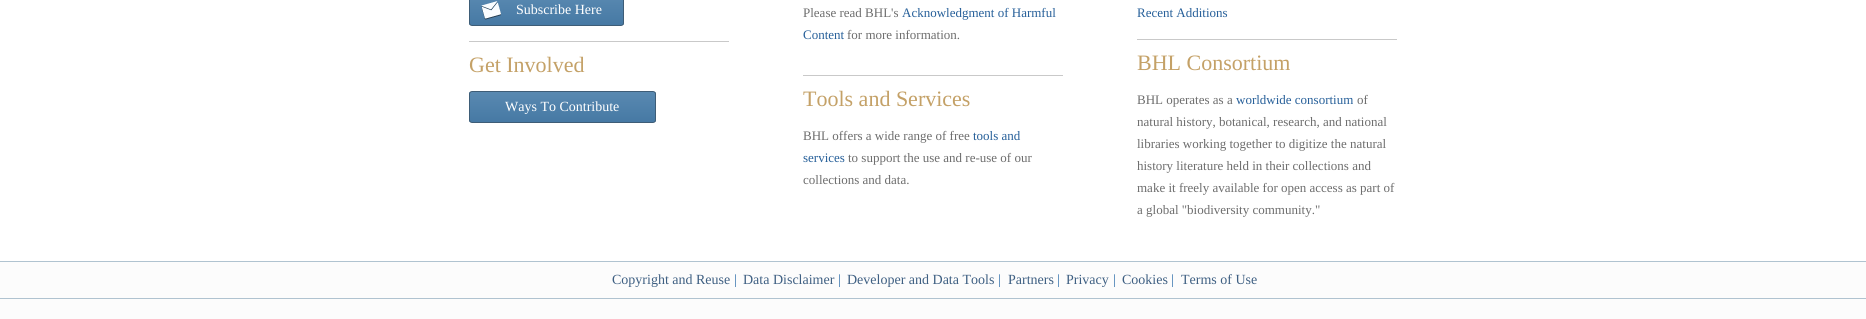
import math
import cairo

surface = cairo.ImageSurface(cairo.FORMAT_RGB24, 1866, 319)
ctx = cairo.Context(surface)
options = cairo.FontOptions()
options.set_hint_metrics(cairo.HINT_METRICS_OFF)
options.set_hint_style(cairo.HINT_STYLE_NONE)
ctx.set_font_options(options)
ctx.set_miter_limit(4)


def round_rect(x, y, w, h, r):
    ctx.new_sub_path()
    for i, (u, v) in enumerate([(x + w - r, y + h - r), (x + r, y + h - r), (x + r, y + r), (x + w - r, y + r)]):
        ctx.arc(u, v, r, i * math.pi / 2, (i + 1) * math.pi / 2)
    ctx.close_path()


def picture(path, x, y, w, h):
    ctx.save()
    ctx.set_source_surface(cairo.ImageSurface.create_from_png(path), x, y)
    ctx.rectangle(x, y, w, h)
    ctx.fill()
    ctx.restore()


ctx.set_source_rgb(1, 1, 1)
ctx.paint()
ctx.set_source_rgb(0.788, 0.788, 0.788)
ctx.rectangle(469, 41, 260, 1)
ctx.fill()
ctx.save()
round_rect(469, -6, 155, 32, 3)
ctx.clip()
gradient = cairo.LinearGradient(470, -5, 470, 25)
gradient.add_color_stop_rgba(0, 0.349, 0.537, 0.694, 1)
gradient.add_color_stop_rgba(1, 0.275, 0.475, 0.643, 1)
ctx.set_source(gradient)
ctx.rectangle(469, 0, 155, 25)
ctx.fill()
ctx.restore()
round_rect(469.5, -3.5, 154, 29, 2.5)
ctx.set_source_rgb(0.243, 0.365, 0.467)
ctx.set_line_width(1)
ctx.stroke()
picture("img1.png", 481, 1, 20, 19)
ctx.select_font_face("Liberation Serif")
ctx.set_font_size(14)
ctx.set_source_rgb(1, 1, 1)
ctx.move_to(516, 14)
ctx.show_text("Subscribe Here")
ctx.set_font_size(22)
ctx.set_source_rgb(0.769, 0.631, 0.404)
ctx.move_to(469, 72)
ctx.show_text("Get Involved")
ctx.save()
round_rect(469, 91, 187, 32, 3)
ctx.clip()
gradient = cairo.LinearGradient(470, 92, 470, 122)
gradient.add_color_stop_rgba(0, 0.349, 0.537, 0.694, 1)
gradient.add_color_stop_rgba(1, 0.275, 0.475, 0.643, 1)
ctx.set_source(gradient)
ctx.rectangle(469, 92, 187, 30)
ctx.fill()
ctx.restore()
round_rect(469.5, 91.5, 186, 31, 2.5)
ctx.set_source_rgb(0.243, 0.365, 0.467)
ctx.stroke()
ctx.set_font_size(14)
ctx.set_source_rgb(1, 1, 1)
ctx.move_to(505, 111)
ctx.show_text("Ways To Contribute")
ctx.set_source_rgb(0.788, 0.788, 0.788)
ctx.rectangle(803, 75, 260, 1)
ctx.fill()
ctx.set_font_size(13)
ctx.set_source_rgb(0.427, 0.427, 0.427)
ctx.move_to(803, 17)
ctx.show_text("Please read BHL's")
ctx.set_source_rgb(0.149, 0.373, 0.6)
ctx.move_to(902, 17)
ctx.show_text("Acknowledgment of Harmful")
ctx.move_to(803, 39)
ctx.show_text("Content")
ctx.set_source_rgb(0.427, 0.427, 0.427)
ctx.move_to(847, 39)
ctx.show_text("for more information.")
ctx.set_font_size(22)
ctx.set_source_rgb(0.769, 0.631, 0.404)
ctx.move_to(803, 106)
ctx.show_text("Tools and Services")
ctx.set_font_size(13)
ctx.set_source_rgb(0.427, 0.427, 0.427)
ctx.move_to(803, 140)
ctx.show_text("BHL offers a wide range of free")
ctx.set_source_rgb(0.149, 0.373, 0.6)
ctx.move_to(973, 140)
ctx.show_text("tools and")
ctx.move_to(803, 162)
ctx.show_text("services")
ctx.set_source_rgb(0.427, 0.427, 0.427)
ctx.move_to(848, 162)
ctx.show_text("to support the use and re-use of our")
ctx.move_to(803, 184)
ctx.show_text("collections and data.")
ctx.set_source_rgb(0.788, 0.788, 0.788)
ctx.rectangle(1137, 39, 260, 1)
ctx.fill()
ctx.set_source_rgb(0.149, 0.373, 0.6)
ctx.move_to(1137, 17)
ctx.show_text("Recent Additions")
ctx.set_font_size(22)
ctx.set_source_rgb(0.769, 0.631, 0.404)
ctx.move_to(1137, 70)
ctx.show_text("BHL Consortium")
ctx.set_font_size(13)
ctx.set_source_rgb(0.427, 0.427, 0.427)
ctx.move_to(1137, 104)
ctx.show_text("BHL operates as a")
ctx.set_source_rgb(0.149, 0.373, 0.6)
ctx.move_to(1236, 104)
ctx.show_text("worldwide consortium")
ctx.set_source_rgb(0.427, 0.427, 0.427)
ctx.move_to(1357, 104)
ctx.show_text("of")
ctx.move_to(1137, 126)
ctx.show_text("natural history, botanical, research, and national")
ctx.move_to(1137, 148)
ctx.show_text("libraries working together to digitize the natural")
ctx.move_to(1137, 170)
ctx.show_text("history literature held in their collections and")
ctx.move_to(1137, 192)
ctx.show_text("make it freely available for open access as part of")
ctx.move_to(1137, 214)
ctx.show_text("a global \"biodiversity community.\"")
ctx.set_source_rgb(0.988, 0.988, 0.988)
ctx.rectangle(0, 262, 1866, 36)
ctx.fill()
ctx.set_source_rgb(0.69, 0.765, 0.816)
ctx.rectangle(0, 261, 1866, 1)
ctx.fill()
ctx.set_font_size(14)
ctx.set_source_rgb(0.243, 0.373, 0.51)
ctx.move_to(612, 284)
ctx.show_text("Copyright and Reuse")
ctx.set_source_rgb(0.165, 0.42, 0.659)
ctx.move_to(734, 284)
ctx.show_text("|")
ctx.set_source_rgb(0.243, 0.373, 0.51)
ctx.move_to(743, 284)
ctx.show_text("Data Disclaimer")
ctx.set_source_rgb(0.165, 0.42, 0.659)
ctx.move_to(838, 284)
ctx.show_text("|")
ctx.set_source_rgb(0.243, 0.373, 0.51)
ctx.move_to(847, 284)
ctx.show_text("Developer and Data Tools")
ctx.set_source_rgb(0.165, 0.42, 0.659)
ctx.move_to(998, 284)
ctx.show_text("|")
ctx.set_source_rgb(0.243, 0.373, 0.51)
ctx.move_to(1008, 284)
ctx.show_text("Partners")
ctx.set_source_rgb(0.165, 0.42, 0.659)
ctx.move_to(1057, 284)
ctx.show_text("|")
ctx.set_source_rgb(0.243, 0.373, 0.51)
ctx.move_to(1066, 284)
ctx.show_text("Privacy")
ctx.set_source_rgb(0.165, 0.42, 0.659)
ctx.move_to(1113, 284)
ctx.show_text("|")
ctx.set_source_rgb(0.243, 0.373, 0.51)
ctx.move_to(1122, 284)
ctx.show_text("Cookies")
ctx.set_source_rgb(0.165, 0.42, 0.659)
ctx.move_to(1171, 284)
ctx.show_text("|")
ctx.set_source_rgb(0.243, 0.373, 0.51)
ctx.move_to(1181, 284)
ctx.show_text("Terms of Use")
ctx.set_source_rgb(0.988, 0.988, 0.988)
ctx.rectangle(0, 299, 1866, 20)
ctx.fill()
ctx.set_source_rgb(0.69, 0.765, 0.816)
ctx.rectangle(0, 298, 1866, 1)
ctx.fill()
surface.write_to_png("page.png")
